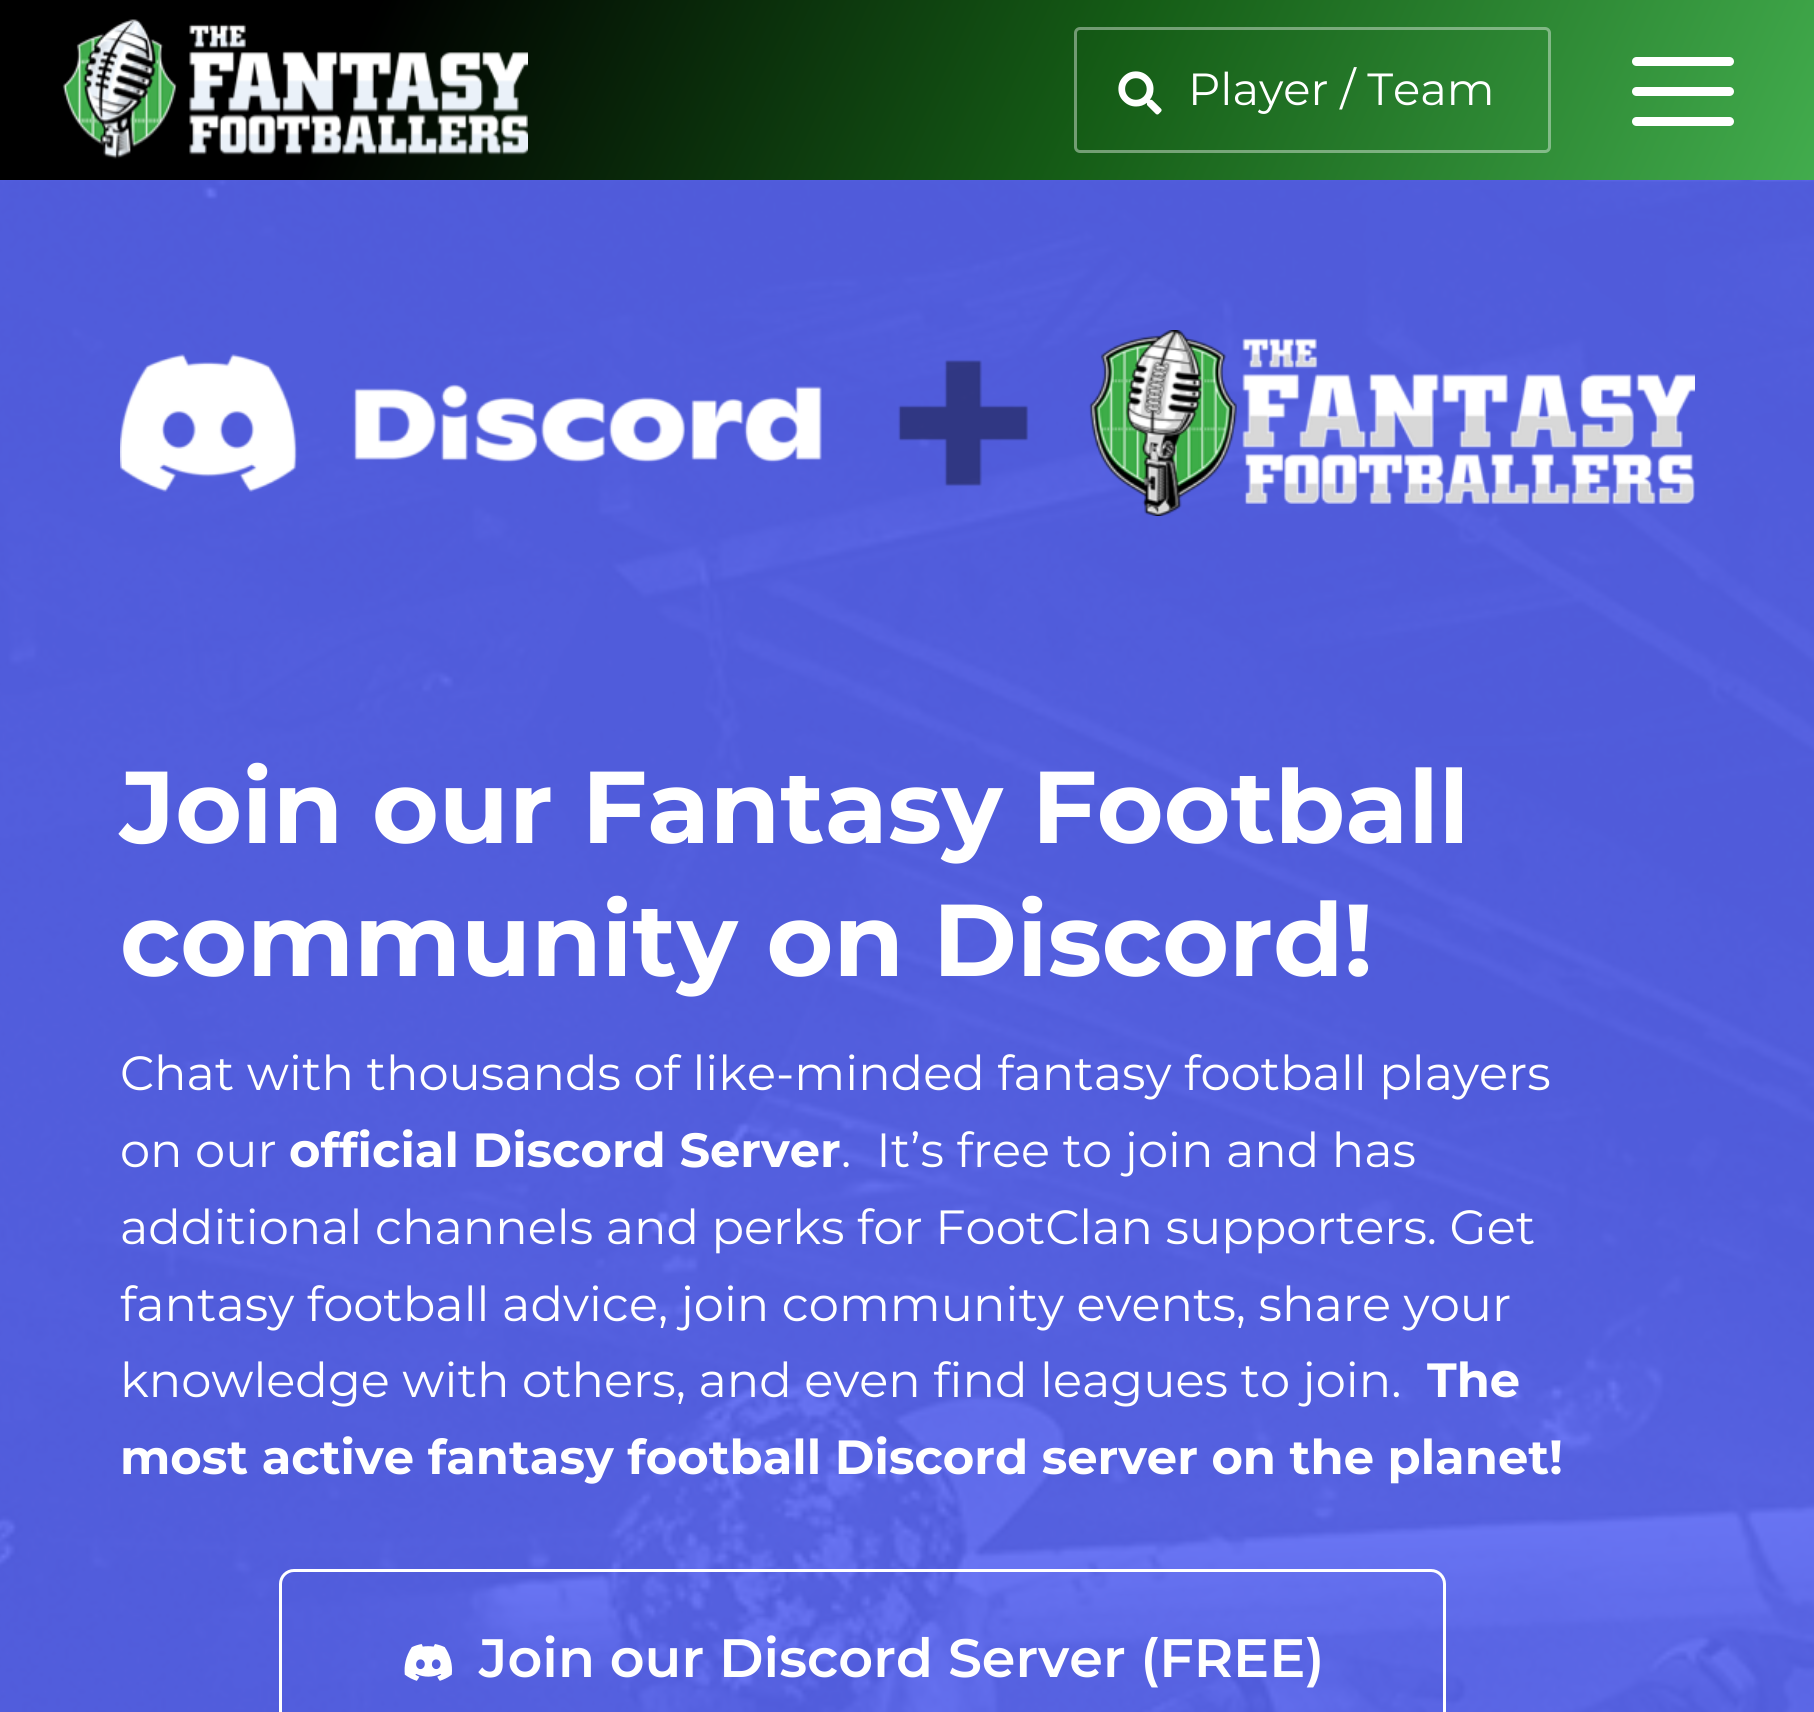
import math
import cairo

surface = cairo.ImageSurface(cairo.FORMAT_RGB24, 1814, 1712)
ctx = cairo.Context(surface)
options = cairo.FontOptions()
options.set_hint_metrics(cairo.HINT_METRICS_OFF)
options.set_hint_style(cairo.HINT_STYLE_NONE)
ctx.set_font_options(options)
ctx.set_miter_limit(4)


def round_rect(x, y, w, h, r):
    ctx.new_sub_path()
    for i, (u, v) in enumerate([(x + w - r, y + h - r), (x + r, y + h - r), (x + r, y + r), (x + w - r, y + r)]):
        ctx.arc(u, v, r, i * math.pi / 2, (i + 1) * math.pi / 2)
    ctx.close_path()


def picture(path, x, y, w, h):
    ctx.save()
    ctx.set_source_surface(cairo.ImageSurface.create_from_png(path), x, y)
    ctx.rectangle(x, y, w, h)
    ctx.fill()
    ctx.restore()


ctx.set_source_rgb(1, 1, 1)
ctx.paint()
gradient = cairo.LinearGradient(128, -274, 1687, 454)
gradient.add_color_stop_rgba(0.2, 0, 0, 0, 1)
gradient.add_color_stop_rgba(0.6, 0.082, 0.361, 0.086, 1)
gradient.add_color_stop_rgba(1, 0.259, 0.675, 0.302, 1)
ctx.set_source(gradient)
ctx.rectangle(0, 0, 1814, 180)
ctx.fill()
picture("img1.png", 62, 19, 466, 140)
round_rect(1075.5, 28.5, 474, 123, 4.5)
ctx.set_source_rgba(1, 1, 1, 0.4)
ctx.set_line_width(3)
ctx.stroke()
picture("img2.png", 1118, 71, 44, 44)
ctx.select_font_face("Montserrat")
ctx.set_font_size(45)
ctx.set_source_rgb(1, 1, 1)
ctx.move_to(1188, 105)
ctx.show_text("Player / Team")
round_rect(1632, 57, 102, 9, 4.5)
ctx.fill()
round_rect(1632, 87, 102, 9, 4.5)
ctx.fill()
round_rect(1632, 117, 102, 9, 4.5)
ctx.fill()
picture("img3.png", 0, 180, 1814, 1532)
picture("img4.png", 120, 330, 1575, 186)
ctx.select_font_face("Montserrat", cairo.FONT_SLANT_NORMAL, cairo.FONT_WEIGHT_BOLD)
ctx.set_font_size(102)
ctx.move_to(120, 843)
ctx.show_text("Join our Fantasy Football")
ctx.move_to(120, 976)
ctx.show_text("community on Discord!")
ctx.select_font_face("Montserrat")
ctx.set_font_size(48)
ctx.move_to(120, 1090)
ctx.show_text("Chat with thousands of like-minded fantasy football players")
ctx.move_to(120, 1167)
ctx.show_text("on our")
ctx.select_font_face("Montserrat", cairo.FONT_SLANT_NORMAL, cairo.FONT_WEIGHT_BOLD)
ctx.move_to(289, 1167)
ctx.show_text("official Discord Server")
ctx.select_font_face("Montserrat")
ctx.move_to(841, 1167)
ctx.show_text(".  It’s free to join and has")
ctx.move_to(120, 1244)
ctx.show_text("additional channels and perks for FootClan supporters. Get")
ctx.move_to(120, 1321)
ctx.show_text("fantasy football advice, join community events, share your")
ctx.move_to(120, 1397)
ctx.show_text("knowledge with others, and even find leagues to join.")
ctx.select_font_face("Montserrat", cairo.FONT_SLANT_NORMAL, cairo.FONT_WEIGHT_BOLD)
ctx.move_to(1427, 1397)
ctx.show_text("The")
ctx.move_to(120, 1474)
ctx.show_text("most active fantasy football Discord server on the planet!")
round_rect(280.5, 1570.5, 1164, 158, 13.5)
ctx.stroke()
picture("img5.png", 404, 1644, 48, 37)
ctx.select_font_face("Montserrat SemiBold")
ctx.set_font_size(54)
ctx.move_to(479, 1677)
ctx.show_text("Join our Discord Server (FREE)")
surface.write_to_png("page.png")
